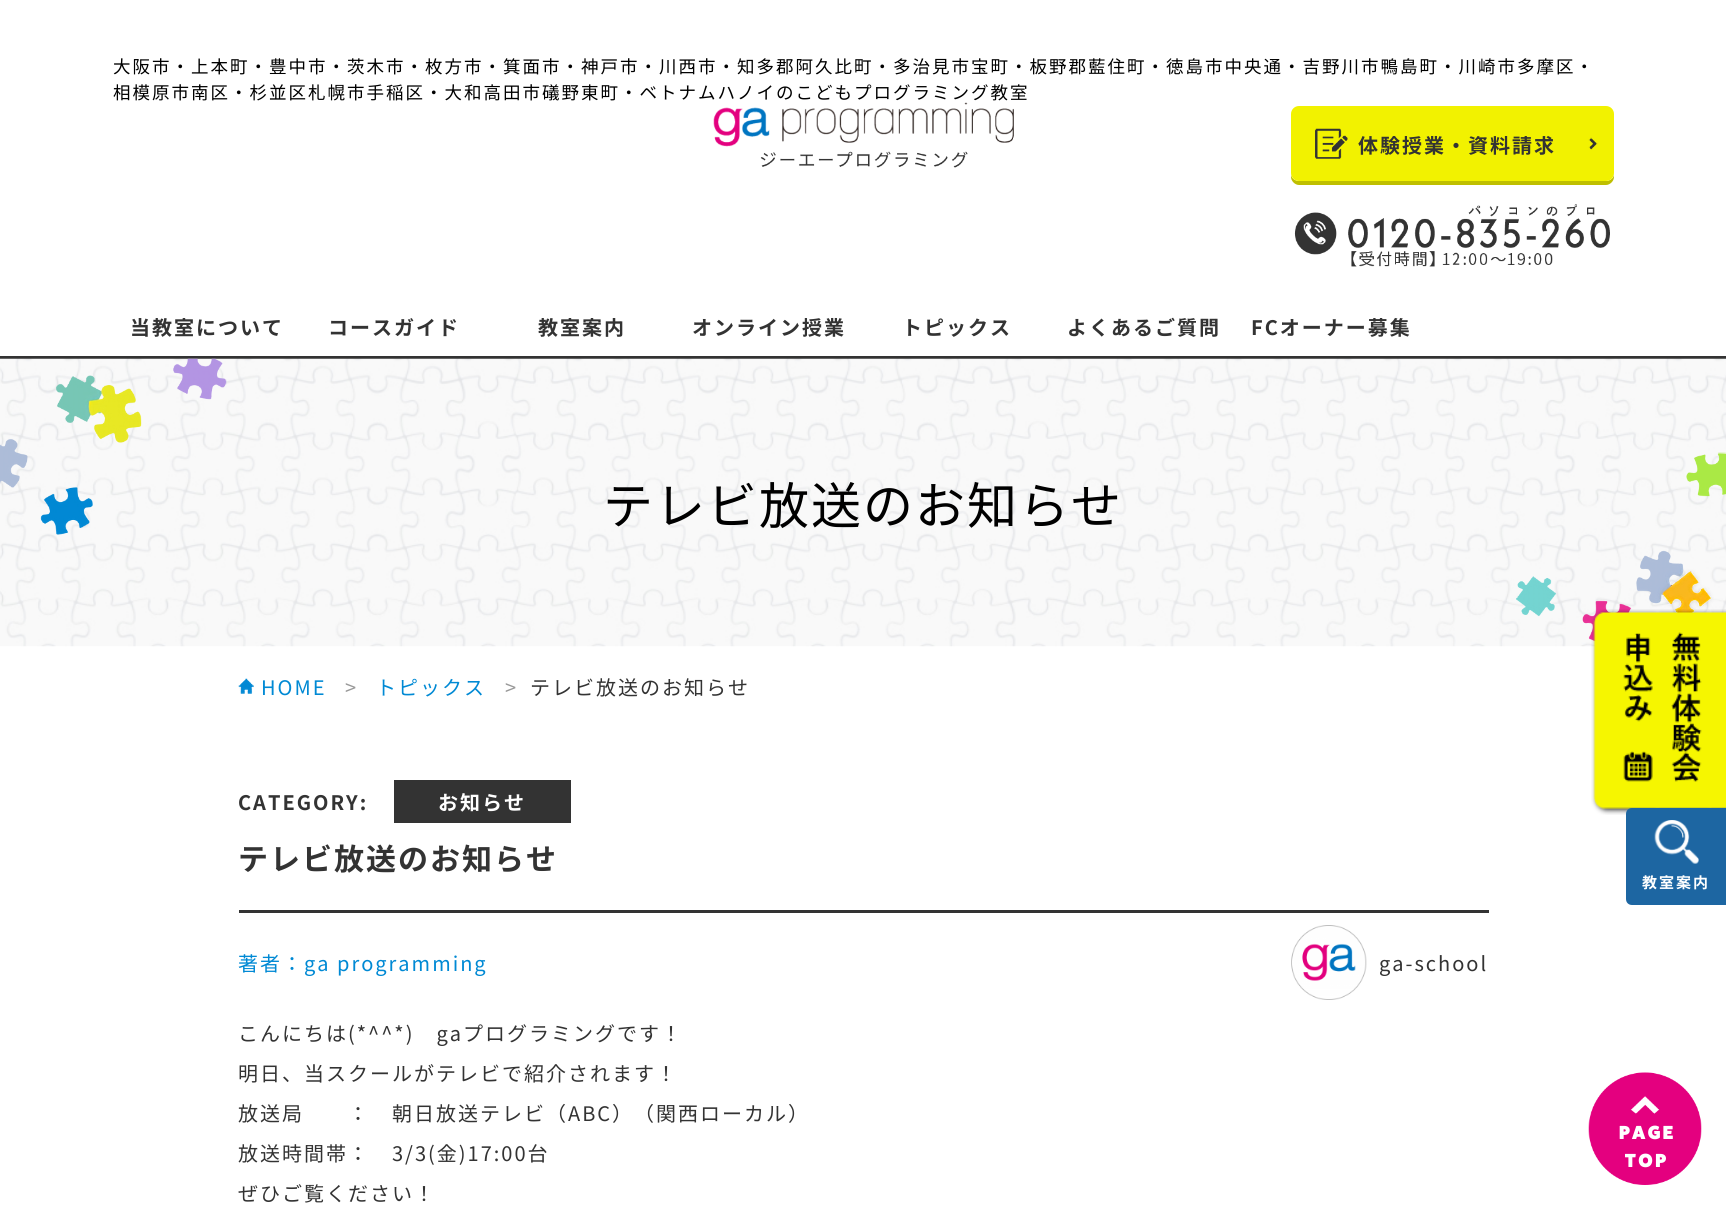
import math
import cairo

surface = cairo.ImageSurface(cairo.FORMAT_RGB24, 1726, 1230)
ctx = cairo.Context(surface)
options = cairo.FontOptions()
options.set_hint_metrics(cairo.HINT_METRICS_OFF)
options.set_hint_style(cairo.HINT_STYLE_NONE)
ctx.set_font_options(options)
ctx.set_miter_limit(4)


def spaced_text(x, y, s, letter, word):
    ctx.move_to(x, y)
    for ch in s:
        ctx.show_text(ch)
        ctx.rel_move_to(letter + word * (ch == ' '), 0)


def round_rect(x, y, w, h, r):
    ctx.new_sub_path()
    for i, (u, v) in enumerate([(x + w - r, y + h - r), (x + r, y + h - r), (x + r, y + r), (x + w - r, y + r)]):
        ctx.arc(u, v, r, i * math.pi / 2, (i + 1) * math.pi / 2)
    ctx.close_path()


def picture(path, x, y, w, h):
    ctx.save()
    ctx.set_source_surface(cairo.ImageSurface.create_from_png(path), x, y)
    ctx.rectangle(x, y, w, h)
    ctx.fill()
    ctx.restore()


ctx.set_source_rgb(1, 1, 1)
ctx.paint()
ctx.set_source_rgb(0.2, 0.2, 0.2)
ctx.rectangle(0, 356, 1726, 3)
ctx.fill()
ctx.select_font_face("Noto Sans JP")
ctx.set_font_size(17.5)
ctx.set_source_rgb(0, 0, 0)
spaced_text(113, 73, "大阪市・上本町・豊中市・茨木市・枚方市・箕面市・神戸市・川西市・知多郡阿久比町・多治見市宝町・板野郡藍住町・徳島市中央通・吉野川市鴨島町・川崎市多摩区・", 2, 0)
spaced_text(113, 99, "相模原市南区・杉並区札幌市手稲区・大和高田市礒野東町・ベトナムハノイのこどもプログラミング教室", 2, 0)
picture("img1.png", 713, 102, 301, 66)
ctx.set_source_rgb(0.749, 0.749, 0)
ctx.new_path()
ctx.move_to(1291, 116)
ctx.line_to(1291, 177)
ctx.curve_to(1291, 181, 1295, 185, 1299, 185)
ctx.line_to(1606, 185)
ctx.curve_to(1610, 185, 1614, 181, 1614, 177)
ctx.line_to(1614, 116)
ctx.line_to(1614, 174)
ctx.curve_to(1614, 178, 1610, 181, 1606, 181)
ctx.line_to(1299, 181)
ctx.curve_to(1295, 181, 1291, 178, 1291, 174)
ctx.close_path()
ctx.fill()
ctx.set_source_rgb(0.949, 0.949, 0)
round_rect(1291, 106, 323, 75, 8)
ctx.fill()
picture("img2.png", 1315, 128, 283, 31)
ctx.select_font_face("Noto Sans JP", cairo.FONT_SLANT_NORMAL, cairo.FONT_WEIGHT_BOLD)
ctx.set_font_size(20)
ctx.set_source_rgb(0.2, 0.2, 0.2)
spaced_text(1358, 153, "体験授業・資料請求", 2, 0)
picture("img3.png", 1294, 204, 316, 63)
spaced_text(130, 335, "当教室について", 2, 0)
spaced_text(328, 335, "コースガイド", 2, 0)
spaced_text(538, 335, "教室案内", 2, 0)
spaced_text(692, 335, "オンライン授業", 2, 0)
spaced_text(902, 335, "トピックス", 2, 0)
spaced_text(1067, 335, "よくあるご質問", 2, 0)
spaced_text(1251, 335, "FCオーナー募集", 2, 0)
picture("img4.png", 0, 358, 1726, 289)
ctx.select_font_face("Noto Sans JP")
ctx.set_font_size(50)
ctx.set_source_rgb(0, 0, 0)
spaced_text(603, 524, "テレビ放送のお知らせ", 2, 0)
picture("img5.png", 238, 678, 16, 16)
ctx.set_font_size(20)
ctx.set_source_rgb(0, 0.537, 0.831)
spaced_text(261, 695, "HOME", 2, 0)
ctx.set_source_rgb(0.6, 0.6, 0.6)
spaced_text(345, 695, ">", 2, 0)
ctx.set_source_rgb(0, 0.537, 0.831)
spaced_text(376, 695, "トピックス", 2, 0)
ctx.set_source_rgb(0.6, 0.6, 0.6)
spaced_text(505, 695, ">", 2, 0)
ctx.set_source_rgb(0.2, 0.2, 0.2)
spaced_text(530, 695, "テレビ放送のお知らせ", 2, 0)
picture("img6.png", 1591, 609, 135, 206)
ctx.select_font_face("Noto Sans JP", cairo.FONT_SLANT_NORMAL, cairo.FONT_WEIGHT_BOLD)
spaced_text(238, 810, "CATEGORY:", 2, 0)
ctx.rectangle(394, 780, 177, 43)
ctx.fill()
ctx.set_source_rgb(1, 1, 1)
spaced_text(438, 810, "お知らせ", 2, 0)
ctx.set_source_rgb(0.2, 0.2, 0.2)
ctx.rectangle(239, 910, 1250, 3)
ctx.fill()
ctx.set_font_size(30)
spaced_text(238, 870, "テレビ放送のお知らせ", 2, 0)
ctx.select_font_face("Noto Sans JP")
ctx.set_font_size(20)
ctx.set_source_rgb(0, 0.537, 0.831)
spaced_text(238, 971, "著者：ga programming", 2, 0)
picture("img7.png", 1291, 925, 76, 75)
ctx.set_source_rgb(0.2, 0.2, 0.2)
spaced_text(1379, 971, "ga-school", 2, 0)
spaced_text(238, 1041, "こんにちは(*^^*)　gaプログラミングです！", 2, 0)
spaced_text(238, 1081, "明日、当スクールがテレビで紹介されます！", 2, 0)
spaced_text(238, 1121, "放送局　　：　朝日放送テレビ（ABC）（関西ローカル）", 2, 0)
spaced_text(238, 1161, "放送時間帯：　3/3(金)17:00台", 2, 0)
spaced_text(238, 1201, "ぜひご覧ください！", 2, 0)
picture("img8.png", 1588, 1072, 114, 113)
picture("img9.png", 1630, 1096, 30, 18)
ctx.select_font_face("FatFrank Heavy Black")
ctx.set_font_size(19)
ctx.set_source_rgb(1, 1, 1)
spaced_text(1619, 1139, "PAGE", 2.5, 0)
spaced_text(1625, 1167, "TOP", 2.5, 0)
ctx.set_source_rgb(0.114, 0.4, 0.635)
ctx.new_path()
ctx.move_to(1632, 808)
ctx.line_to(1726, 808)
ctx.line_to(1726, 905)
ctx.line_to(1632, 905)
ctx.curve_to(1628.5, 905, 1626, 902.5, 1626, 899)
ctx.line_to(1626, 814)
ctx.curve_to(1626, 810.5, 1628.5, 808, 1632, 808)
ctx.close_path()
ctx.fill()
picture("img10.png", 1654, 820, 45, 44)
ctx.select_font_face("Noto Sans JP", cairo.FONT_SLANT_NORMAL, cairo.FONT_WEIGHT_BOLD)
ctx.set_font_size(15)
ctx.set_source_rgb(1, 1, 1)
spaced_text(1642, 888, "教室案内", 2, 0)
surface.write_to_png("page.png")
